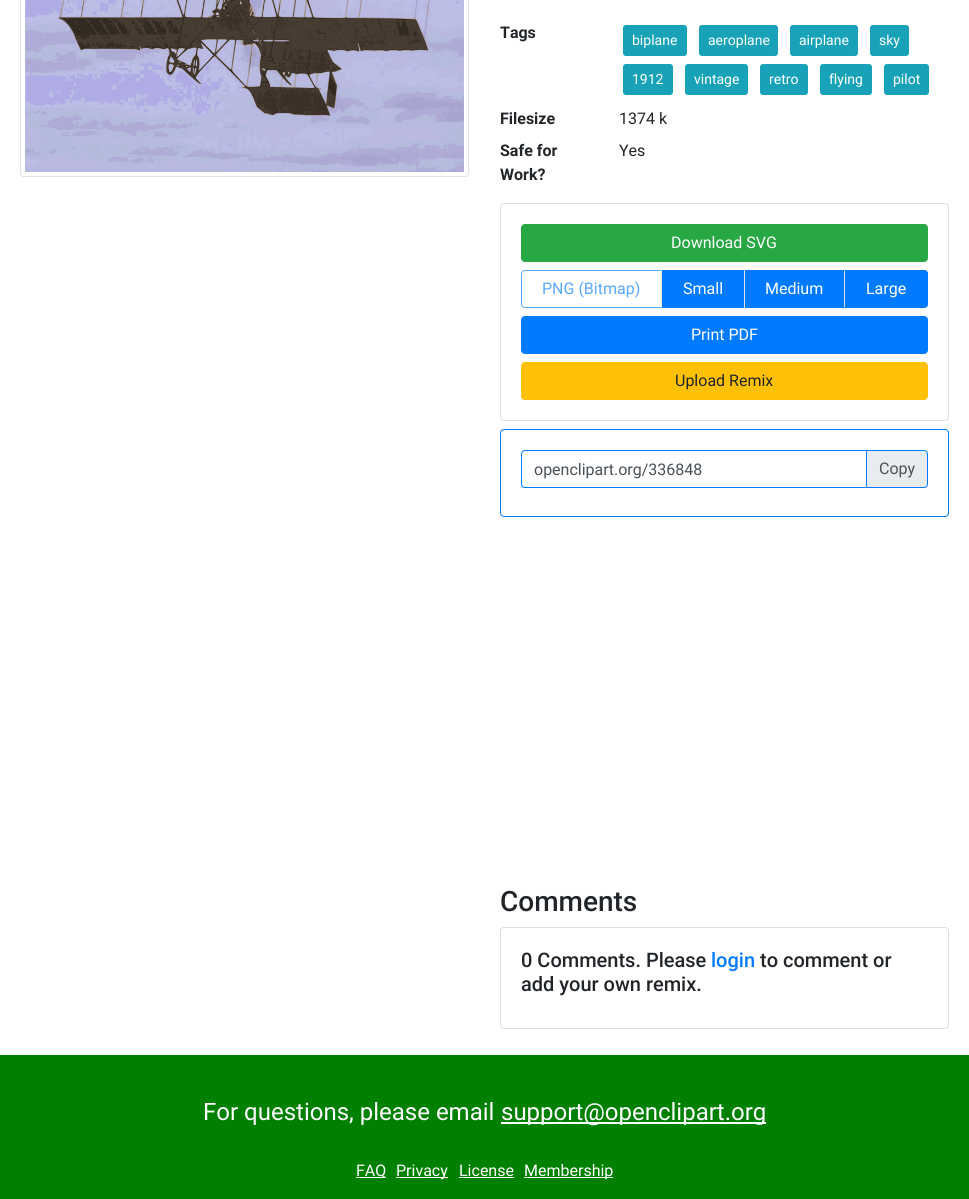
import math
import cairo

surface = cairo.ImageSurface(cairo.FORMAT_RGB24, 969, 1199)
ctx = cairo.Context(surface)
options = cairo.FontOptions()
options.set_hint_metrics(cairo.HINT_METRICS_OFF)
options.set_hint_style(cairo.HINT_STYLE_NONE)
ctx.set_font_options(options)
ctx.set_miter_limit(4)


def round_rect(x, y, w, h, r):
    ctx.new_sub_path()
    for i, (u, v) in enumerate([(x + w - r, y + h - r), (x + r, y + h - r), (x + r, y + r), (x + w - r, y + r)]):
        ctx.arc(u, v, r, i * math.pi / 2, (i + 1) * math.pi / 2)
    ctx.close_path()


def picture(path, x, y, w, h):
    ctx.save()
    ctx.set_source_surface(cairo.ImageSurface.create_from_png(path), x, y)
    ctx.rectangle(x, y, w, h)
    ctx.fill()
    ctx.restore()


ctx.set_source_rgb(1, 1, 1)
ctx.paint()
round_rect(20.5, -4.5, 448, 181, 3.5)
ctx.set_source_rgb(0.871, 0.886, 0.902)
ctx.set_line_width(1)
ctx.stroke()
picture("img1.png", 25, 0, 439, 172)
ctx.select_font_face("Roboto", cairo.FONT_SLANT_NORMAL, cairo.FONT_WEIGHT_BOLD)
ctx.set_font_size(16)
ctx.set_source_rgb(0.129, 0.145, 0.161)
ctx.move_to(500, 38)
ctx.show_text("Tags")
ctx.set_source_rgb(0.09, 0.635, 0.722)
round_rect(623.5, 25.5, 63, 30, 2.5)
ctx.fill_preserve()
ctx.stroke()
ctx.select_font_face("Roboto")
ctx.set_font_size(14)
ctx.set_source_rgb(1, 1, 1)
ctx.move_to(632, 45)
ctx.show_text("biplane")
ctx.set_source_rgb(0.09, 0.635, 0.722)
round_rect(699.5, 25.5, 78, 30, 2.5)
ctx.fill_preserve()
ctx.stroke()
ctx.set_source_rgb(1, 1, 1)
ctx.move_to(708, 45)
ctx.show_text("aeroplane")
ctx.set_source_rgb(0.09, 0.635, 0.722)
round_rect(790.5, 25.5, 67, 30, 2.5)
ctx.fill_preserve()
ctx.stroke()
ctx.set_source_rgb(1, 1, 1)
ctx.move_to(799, 45)
ctx.show_text("airplane")
ctx.set_source_rgb(0.09, 0.635, 0.722)
round_rect(870.5, 25.5, 38, 30, 2.5)
ctx.fill_preserve()
ctx.stroke()
ctx.set_source_rgb(1, 1, 1)
ctx.move_to(879, 45)
ctx.show_text("sky")
ctx.set_source_rgb(0.09, 0.635, 0.722)
round_rect(623.5, 64.5, 49, 30, 2.5)
ctx.fill_preserve()
ctx.stroke()
ctx.set_source_rgb(1, 1, 1)
ctx.move_to(632, 84)
ctx.show_text("1912")
ctx.set_source_rgb(0.09, 0.635, 0.722)
round_rect(685.5, 64.5, 62, 30, 2.5)
ctx.fill_preserve()
ctx.stroke()
ctx.set_source_rgb(1, 1, 1)
ctx.move_to(694, 84)
ctx.show_text("vintage")
ctx.set_source_rgb(0.09, 0.635, 0.722)
round_rect(760.5, 64.5, 47, 30, 2.5)
ctx.fill_preserve()
ctx.stroke()
ctx.set_source_rgb(1, 1, 1)
ctx.move_to(769, 84)
ctx.show_text("retro")
ctx.set_source_rgb(0.09, 0.635, 0.722)
round_rect(820.5, 64.5, 51, 30, 2.5)
ctx.fill_preserve()
ctx.stroke()
ctx.set_source_rgb(1, 1, 1)
ctx.move_to(829, 84)
ctx.show_text("flying")
ctx.set_source_rgb(0.09, 0.635, 0.722)
round_rect(884.5, 64.5, 44, 30, 2.5)
ctx.fill_preserve()
ctx.stroke()
ctx.set_source_rgb(1, 1, 1)
ctx.move_to(893, 84)
ctx.show_text("pilot")
ctx.select_font_face("Roboto", cairo.FONT_SLANT_NORMAL, cairo.FONT_WEIGHT_BOLD)
ctx.set_font_size(16)
ctx.set_source_rgb(0.129, 0.145, 0.161)
ctx.move_to(500, 124)
ctx.show_text("Filesize")
ctx.select_font_face("Roboto")
ctx.move_to(619, 124)
ctx.show_text("1374 k")
ctx.select_font_face("Roboto", cairo.FONT_SLANT_NORMAL, cairo.FONT_WEIGHT_BOLD)
ctx.move_to(500, 156)
ctx.show_text("Safe for")
ctx.move_to(500, 180)
ctx.show_text("Work?")
ctx.select_font_face("Roboto")
ctx.move_to(619, 156)
ctx.show_text("Yes")
round_rect(500.5, 203.5, 448, 217, 3.5)
ctx.set_source_rgb(0.875, 0.875, 0.875)
ctx.stroke()
ctx.set_source_rgb(0.157, 0.655, 0.271)
round_rect(521.5, 224.5, 406, 37, 3.5)
ctx.fill_preserve()
ctx.stroke()
ctx.set_source_rgb(1, 1, 1)
ctx.move_to(671, 248)
ctx.show_text("Download SVG")
ctx.new_path()
ctx.move_to(525, 270.5)
ctx.line_to(661.5, 270.5)
ctx.line_to(661.5, 307.5)
ctx.line_to(525, 307.5)
ctx.curve_to(523, 307.5, 521.5, 306, 521.5, 304)
ctx.line_to(521.5, 274)
ctx.curve_to(521.5, 272, 523, 270.5, 525, 270.5)
ctx.close_path()
ctx.set_source_rgb(0.349, 0.663, 1)
ctx.stroke()
ctx.move_to(542, 294)
ctx.show_text("PNG (Bitmap)")
ctx.set_source_rgb(0, 0.482, 1)
ctx.rectangle(662, 270, 82, 38)
ctx.fill()
ctx.set_source_rgb(0.871, 0.886, 0.902)
ctx.rectangle(661, 270, 1, 38)
ctx.fill()
ctx.set_source_rgb(1, 1, 1)
ctx.move_to(683, 294)
ctx.show_text("Small")
ctx.set_source_rgb(0, 0.482, 1)
ctx.rectangle(745, 270, 99, 38)
ctx.fill()
ctx.set_source_rgb(0.871, 0.886, 0.902)
ctx.rectangle(744, 270, 1, 38)
ctx.fill()
ctx.set_source_rgb(1, 1, 1)
ctx.move_to(765, 294)
ctx.show_text("Medium")
ctx.set_source_rgb(0, 0.482, 1)
ctx.new_path()
ctx.move_to(844, 270)
ctx.line_to(924, 270)
ctx.curve_to(926, 270, 928, 272, 928, 274)
ctx.line_to(928, 304)
ctx.curve_to(928, 306, 926, 308, 924, 308)
ctx.line_to(844, 308)
ctx.close_path()
ctx.fill()
ctx.new_path()
ctx.move_to(844, 270)
ctx.line_to(845, 271)
ctx.line_to(925, 271)
ctx.line_to(926, 272)
ctx.line_to(927, 271)
ctx.line_to(924, 270)
ctx.close_path()
ctx.fill()
ctx.new_path()
ctx.move_to(928, 304)
ctx.line_to(928, 274)
ctx.curve_to(928, 273, 927.5, 272, 927, 271)
ctx.line_to(926, 272)
ctx.curve_to(927, 272, 927, 273, 927, 274)
ctx.line_to(927, 304)
ctx.curve_to(927, 305, 927, 306, 926, 306)
ctx.line_to(927, 307)
ctx.curve_to(927.5, 306, 928, 305, 928, 304)
ctx.close_path()
ctx.fill()
ctx.new_path()
ctx.move_to(924, 308)
ctx.line_to(927, 307)
ctx.line_to(926, 306)
ctx.line_to(925, 307)
ctx.line_to(845, 307)
ctx.line_to(844, 308)
ctx.close_path()
ctx.fill()
ctx.set_source_rgb(0.871, 0.886, 0.902)
ctx.new_path()
ctx.move_to(844, 270)
ctx.line_to(844, 308)
ctx.line_to(845, 307)
ctx.line_to(845, 271)
ctx.close_path()
ctx.fill()
ctx.set_source_rgb(1, 1, 1)
ctx.move_to(866, 294)
ctx.show_text("Large")
ctx.set_source_rgb(0, 0.482, 1)
round_rect(521.5, 316.5, 406, 37, 3.5)
ctx.fill_preserve()
ctx.stroke()
ctx.set_source_rgb(1, 1, 1)
ctx.move_to(691, 340)
ctx.show_text("Print PDF")
ctx.set_source_rgb(1, 0.757, 0.027)
round_rect(521.5, 362.5, 406, 37, 3.5)
ctx.fill_preserve()
ctx.stroke()
ctx.set_source_rgb(0.129, 0.145, 0.161)
ctx.move_to(675, 386)
ctx.show_text("Upload Remix")
round_rect(500.5, 429.5, 448, 87, 3.5)
ctx.set_source_rgb(0, 0.482, 1)
ctx.stroke()
ctx.new_path()
ctx.move_to(525, 450.5)
ctx.line_to(866.5, 450.5)
ctx.line_to(866.5, 487.5)
ctx.line_to(525, 487.5)
ctx.curve_to(523, 487.5, 521.5, 486, 521.5, 484)
ctx.line_to(521.5, 454)
ctx.curve_to(521.5, 452, 523, 450.5, 525, 450.5)
ctx.close_path()
ctx.stroke()
ctx.set_source_rgb(0.286, 0.314, 0.341)
ctx.move_to(534, 475)
ctx.show_text("openclipart.org/336848")
ctx.set_source_rgb(0.914, 0.925, 0.937)
ctx.new_path()
ctx.move_to(866.5, 450.5)
ctx.line_to(924, 450.5)
ctx.curve_to(926, 450.5, 927.5, 452, 927.5, 454)
ctx.line_to(927.5, 484)
ctx.curve_to(927.5, 486, 926, 487.5, 924, 487.5)
ctx.line_to(866.5, 487.5)
ctx.close_path()
ctx.fill_preserve()
ctx.set_source_rgb(0, 0.482, 1)
ctx.stroke()
ctx.set_source_rgb(0.286, 0.314, 0.341)
ctx.move_to(879, 474)
ctx.show_text("Copy")
ctx.select_font_face("Roboto Medium")
ctx.set_font_size(28)
ctx.set_source_rgb(0.129, 0.145, 0.161)
ctx.move_to(500, 911)
ctx.show_text("Comments")
round_rect(500.5, 927.5, 448, 101, 3.5)
ctx.set_source_rgb(0.875, 0.875, 0.875)
ctx.stroke()
ctx.set_font_size(20)
ctx.set_source_rgb(0.129, 0.145, 0.161)
ctx.move_to(521, 967)
ctx.show_text("0 Comments. Please")
ctx.set_source_rgb(0, 0.482, 1)
ctx.move_to(711, 967)
ctx.show_text("login")
ctx.set_source_rgb(0.129, 0.145, 0.161)
ctx.move_to(760, 967)
ctx.show_text("to comment or")
ctx.move_to(521, 991)
ctx.show_text("add your own remix.")
ctx.set_source_rgb(0, 0.502, 0)
ctx.rectangle(0, 1055, 969, 144)
ctx.fill()
ctx.select_font_face("Roboto")
ctx.set_font_size(24)
ctx.set_source_rgb(1, 1, 1)
ctx.move_to(203, 1120)
ctx.show_text("For questions, please email")
ctx.rectangle(501, 1122, 265, 2)
ctx.fill()
ctx.move_to(501, 1120)
ctx.show_text("support@openclipart.org")
ctx.rectangle(356, 1177, 30, 1)
ctx.fill()
ctx.set_font_size(16)
ctx.move_to(356, 1176)
ctx.show_text("FAQ")
ctx.rectangle(396, 1177, 52, 1)
ctx.fill()
ctx.move_to(396, 1176)
ctx.show_text("Privacy")
ctx.move_to(459, 1176)
ctx.show_text("License")
ctx.rectangle(459, 1177, 55, 1)
ctx.fill()
ctx.rectangle(524, 1177, 89, 1)
ctx.fill()
ctx.move_to(524, 1176)
ctx.show_text("Membership")
surface.write_to_png("page.png")
